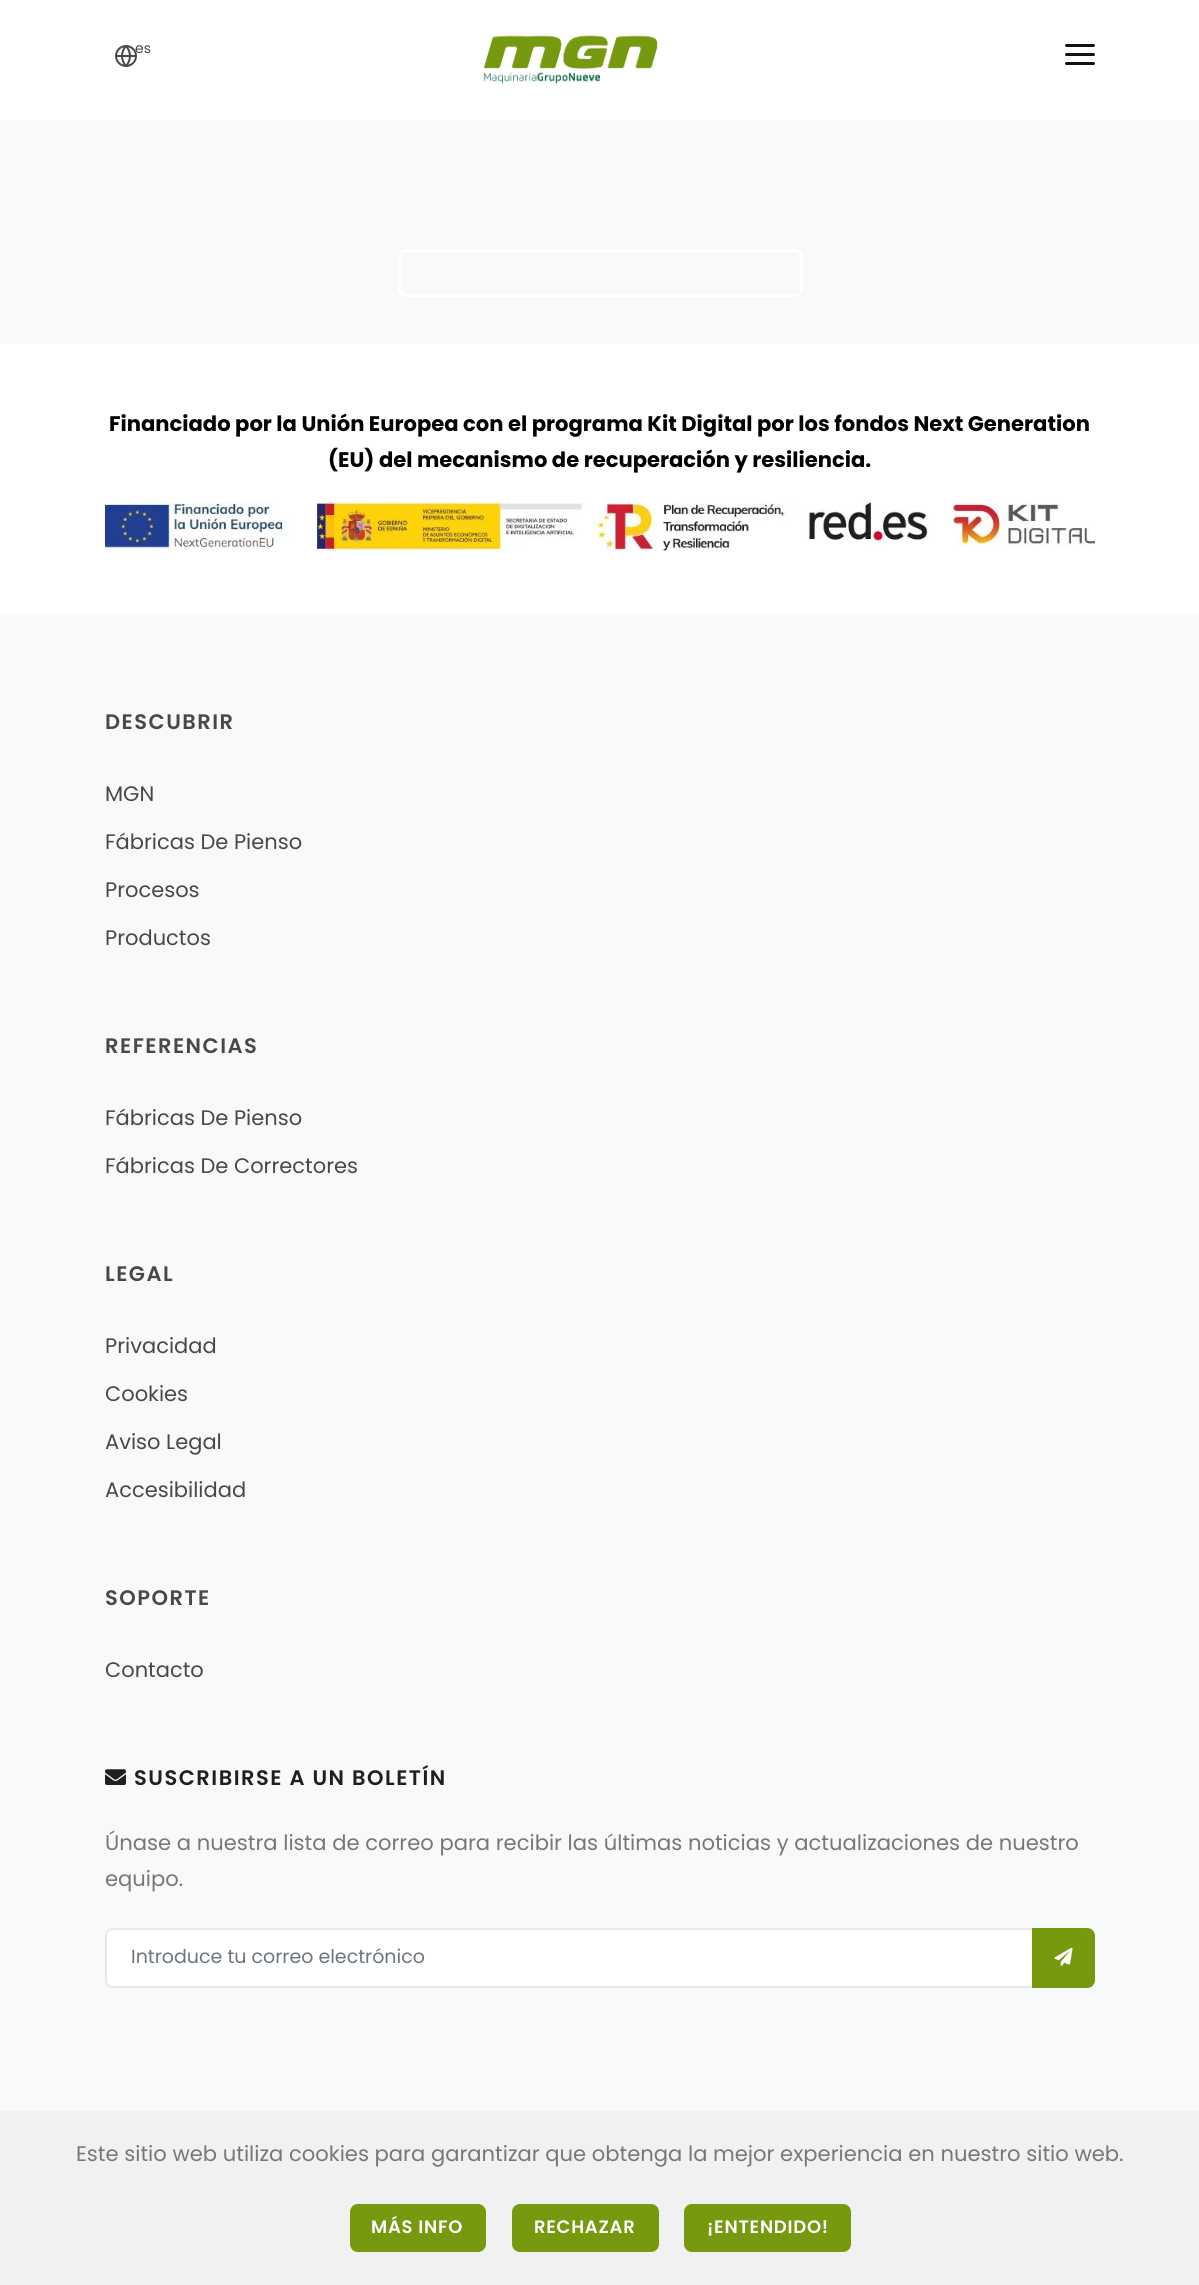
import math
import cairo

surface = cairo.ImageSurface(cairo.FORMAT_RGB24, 1199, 2285)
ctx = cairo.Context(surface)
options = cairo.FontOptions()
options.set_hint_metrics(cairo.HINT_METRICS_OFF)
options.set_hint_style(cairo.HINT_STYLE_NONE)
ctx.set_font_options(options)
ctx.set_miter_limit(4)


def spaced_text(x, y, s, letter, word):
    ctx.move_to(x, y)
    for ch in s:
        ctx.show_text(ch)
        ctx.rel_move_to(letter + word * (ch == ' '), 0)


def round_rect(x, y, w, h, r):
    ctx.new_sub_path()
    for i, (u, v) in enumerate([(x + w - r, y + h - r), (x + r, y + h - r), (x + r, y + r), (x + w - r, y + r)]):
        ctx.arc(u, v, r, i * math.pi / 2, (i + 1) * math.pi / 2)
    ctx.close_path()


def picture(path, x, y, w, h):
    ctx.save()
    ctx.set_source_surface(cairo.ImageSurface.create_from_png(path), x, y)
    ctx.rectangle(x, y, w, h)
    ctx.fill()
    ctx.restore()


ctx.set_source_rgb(0.969, 0.973, 0.984)
ctx.paint()
ctx.set_source_rgb(1, 1, 1)
ctx.rectangle(0, 0, 1199, 120)
ctx.fill()
picture("img1.png", 115, 45, 22, 22)
ctx.select_font_face("Poppins")
ctx.set_font_size(14)
ctx.set_source_rgb(0.282, 0.282, 0.282)
ctx.move_to(135, 53)
ctx.show_text("es")
picture("img2.png", 483, 35, 175, 49)
ctx.set_source_rgb(0.067, 0.067, 0.067)
round_rect(1065, 53, 30, 3, 1.5)
ctx.fill()
round_rect(1065, 44, 30, 3, 1.5)
ctx.fill()
round_rect(1065, 62, 30, 3, 1.5)
ctx.fill()
round_rect(399.5, 250.5, 402, 45, 6.5)
ctx.set_source_rgb(1, 1, 1)
ctx.set_line_width(3)
ctx.stroke()
ctx.rectangle(0, 344, 1199, 270)
ctx.fill()
ctx.select_font_face("Poppins", cairo.FONT_SLANT_NORMAL, cairo.FONT_WEIGHT_BOLD)
ctx.set_font_size(21.1)
ctx.set_source_rgb(0, 0, 0)
ctx.move_to(109, 431)
ctx.show_text("Financiado por la Unión Europea con el programa Kit Digital por los fondos Next Generation")
ctx.move_to(328, 467)
ctx.show_text("(EU) del mecanismo de recuperación y resiliencia.")
picture("img3.png", 105, 502, 990, 49)
ctx.select_font_face("Poppins SemiBold")
ctx.set_font_size(21)
ctx.set_source_rgb(0.282, 0.282, 0.282)
spaced_text(105, 729, "DESCUBRIR", 1.5, 0)
ctx.select_font_face("Poppins")
ctx.move_to(105, 801)
ctx.show_text("MGN")
ctx.move_to(105, 849)
ctx.show_text("Fábricas De Pienso")
ctx.move_to(105, 897)
ctx.show_text("Procesos")
ctx.move_to(105, 945)
ctx.show_text("Productos")
ctx.select_font_face("Poppins SemiBold")
spaced_text(105, 1053, "REFERENCIAS", 1.5, 0)
ctx.select_font_face("Poppins")
ctx.move_to(105, 1125)
ctx.show_text("Fábricas De Pienso")
ctx.move_to(105, 1173)
ctx.show_text("Fábricas De Correctores")
ctx.select_font_face("Poppins SemiBold")
spaced_text(105, 1281, "LEGAL", 1.5, 0)
ctx.select_font_face("Poppins")
ctx.move_to(105, 1353)
ctx.show_text("Privacidad")
ctx.move_to(105, 1401)
ctx.show_text("Cookies")
ctx.move_to(105, 1449)
ctx.show_text("Aviso Legal")
ctx.move_to(105, 1497)
ctx.show_text("Accesibilidad")
ctx.select_font_face("Poppins SemiBold")
spaced_text(105, 1605, "SOPORTE", 1.5, 0)
ctx.select_font_face("Poppins")
ctx.move_to(105, 1677)
ctx.show_text("Contacto")
picture("img4.png", 105, 1769, 21, 16)
ctx.select_font_face("Poppins SemiBold")
ctx.set_source_rgb(0.122, 0.122, 0.122)
spaced_text(134, 1785, "SUSCRIBIRSE A UN BOLETÍN", 1.5, 0)
ctx.select_font_face("Poppins")
ctx.set_font_size(21.1)
ctx.set_source_rgb(0.467, 0.467, 0.467)
ctx.move_to(105, 1850)
ctx.show_text("Únase a nuestra lista de correo para recibir las últimas noticias y actualizaciones de nuestro")
ctx.move_to(105, 1886)
ctx.show_text("equipo.")
ctx.set_source_rgb(1, 1, 1)
ctx.new_path()
ctx.move_to(113, 1929)
ctx.line_to(1033, 1929)
ctx.line_to(1033, 1987)
ctx.line_to(113, 1987)
ctx.curve_to(109, 1987, 106, 1984, 106, 1980)
ctx.line_to(106, 1936)
ctx.curve_to(106, 1932, 109, 1929, 113, 1929)
ctx.close_path()
ctx.fill_preserve()
ctx.set_source_rgb(0.902, 0.91, 0.922)
ctx.set_line_width(2)
ctx.stroke()
ctx.set_font_size(19)
ctx.set_source_rgb(0.424, 0.459, 0.49)
ctx.move_to(131, 1963)
ctx.show_text("Introduce tu correo electrónico")
ctx.set_source_rgb(0.463, 0.6, 0.059)
ctx.new_path()
ctx.move_to(1033, 1929)
ctx.line_to(1087, 1929)
ctx.curve_to(1091, 1929, 1094, 1932, 1094, 1936)
ctx.line_to(1094, 1980)
ctx.curve_to(1094, 1984, 1091, 1987, 1087, 1987)
ctx.line_to(1033, 1987)
ctx.close_path()
ctx.fill_preserve()
ctx.stroke()
picture("img5.png", 1054, 1947, 19, 19)
ctx.set_source_rgb(0.945, 0.945, 0.945)
ctx.rectangle(0, 2111, 1199, 174)
ctx.fill()
ctx.set_font_size(21.1)
ctx.set_source_rgb(0.467, 0.467, 0.467)
ctx.move_to(76, 2161)
ctx.show_text("Este sitio web utiliza cookies para garantizar que obtenga la mejor experiencia en nuestro sitio web.")
ctx.set_source_rgb(0.463, 0.6, 0.059)
round_rect(351, 2205, 134, 46, 7)
ctx.fill_preserve()
ctx.stroke()
ctx.select_font_face("Poppins SemiBold")
ctx.set_font_size(18)
ctx.set_source_rgb(1, 1, 1)
spaced_text(371, 2233, "MÁS INFO", 0.75, 0)
ctx.set_source_rgb(0.463, 0.6, 0.059)
round_rect(513, 2205, 145, 46, 7)
ctx.fill_preserve()
ctx.stroke()
ctx.set_source_rgb(1, 1, 1)
spaced_text(534, 2233, "RECHAZAR", 0.75, 0)
ctx.set_source_rgb(0.463, 0.6, 0.059)
round_rect(685, 2205, 165, 46, 7)
ctx.fill_preserve()
ctx.stroke()
ctx.set_source_rgb(1, 1, 1)
spaced_text(707, 2233, "¡ENTENDIDO!", 0.75, 0)
surface.write_to_png("page.png")
